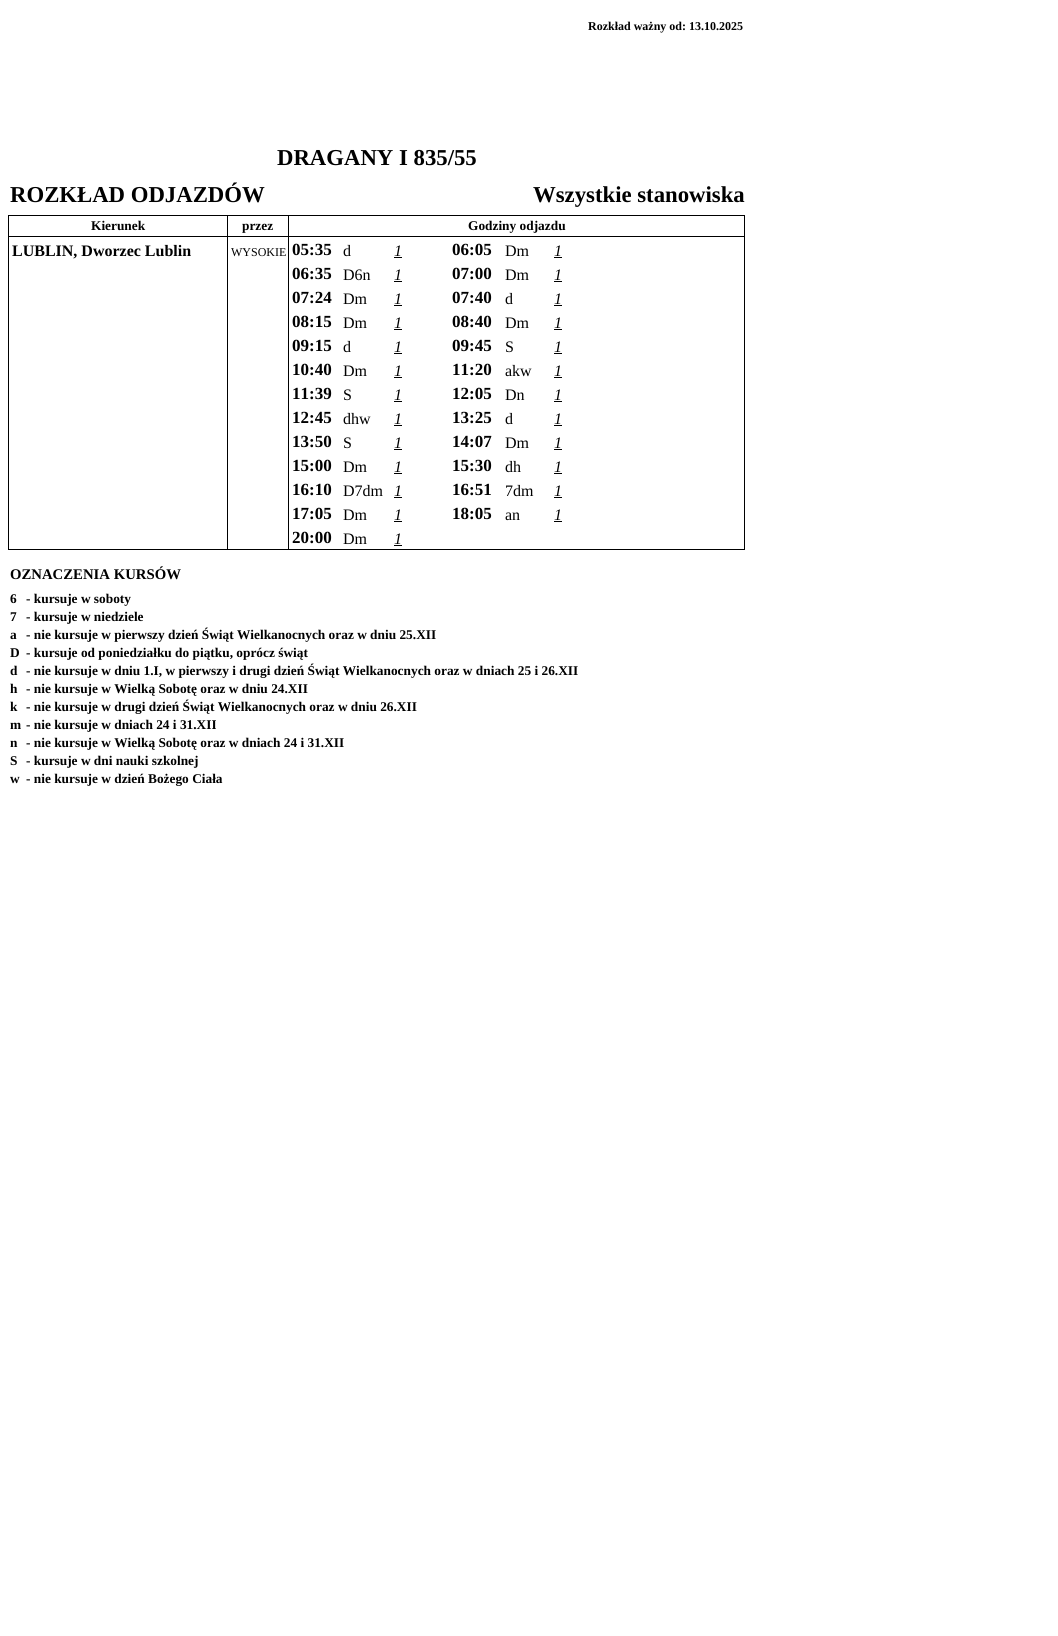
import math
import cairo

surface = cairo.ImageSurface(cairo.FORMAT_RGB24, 1058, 1636)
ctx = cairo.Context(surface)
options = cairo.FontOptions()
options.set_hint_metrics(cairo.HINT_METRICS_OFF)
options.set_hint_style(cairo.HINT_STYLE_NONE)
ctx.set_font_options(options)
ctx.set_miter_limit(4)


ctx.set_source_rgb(1, 1, 1)
ctx.paint()
ctx.select_font_face("Liberation Serif", cairo.FONT_SLANT_NORMAL, cairo.FONT_WEIGHT_BOLD)
ctx.set_font_size(12)
ctx.set_source_rgb(0, 0, 0)
ctx.move_to(588, 30)
ctx.show_text("Rozkład ważny od: 13.10.2025")
ctx.set_font_size(22.75)
ctx.move_to(277, 165)
ctx.show_text("DRAGANY I 835/55")
ctx.move_to(10, 202)
ctx.show_text("ROZKŁAD ODJAZDÓW")
ctx.move_to(533, 202)
ctx.show_text("Wszystkie stanowiska")
ctx.rectangle(288, 215, 457, 1)
ctx.fill()
ctx.rectangle(288, 236, 457, 1)
ctx.fill()
ctx.rectangle(744, 261, 1, 289)
ctx.fill()
ctx.rectangle(288, 549, 457, 1)
ctx.fill()
ctx.rectangle(288, 261, 1, 289)
ctx.fill()
ctx.rectangle(288, 236, 1, 26)
ctx.fill()
ctx.rectangle(227, 236, 62, 1)
ctx.fill()
ctx.rectangle(288, 215, 1, 22)
ctx.fill()
ctx.rectangle(227, 215, 62, 1)
ctx.fill()
ctx.rectangle(227, 549, 62, 1)
ctx.fill()
ctx.rectangle(227, 261, 1, 289)
ctx.fill()
ctx.rectangle(227, 236, 1, 26)
ctx.fill()
ctx.rectangle(8, 236, 220, 1)
ctx.fill()
ctx.rectangle(227, 215, 1, 22)
ctx.fill()
ctx.rectangle(8, 215, 220, 1)
ctx.fill()
ctx.rectangle(8, 549, 220, 1)
ctx.fill()
ctx.rectangle(8, 261, 1, 289)
ctx.fill()
ctx.rectangle(8, 236, 1, 26)
ctx.fill()
ctx.rectangle(8, 215, 1, 22)
ctx.fill()
ctx.set_font_size(13.35)
ctx.move_to(91, 230)
ctx.show_text("Kierunek")
ctx.move_to(242, 230)
ctx.show_text("przez")
ctx.rectangle(744, 236, 1, 26)
ctx.fill()
ctx.rectangle(744, 215, 1, 22)
ctx.fill()
ctx.move_to(468, 230)
ctx.show_text("Godziny odjazdu")
ctx.set_font_size(16)
ctx.move_to(12, 256)
ctx.show_text("LUBLIN, Dworzec Lublin")
ctx.select_font_face("Liberation Serif")
ctx.set_font_size(12)
ctx.move_to(231, 256)
ctx.show_text("WYSOKIE")
ctx.select_font_face("Liberation Serif", cairo.FONT_SLANT_NORMAL, cairo.FONT_WEIGHT_BOLD)
ctx.set_font_size(17)
ctx.move_to(292, 255)
ctx.show_text("05:35")
ctx.select_font_face("Liberation Serif")
ctx.set_font_size(16)
ctx.move_to(343, 256)
ctx.show_text("d")
ctx.select_font_face("Liberation Serif", cairo.FONT_SLANT_ITALIC)
ctx.move_to(394, 256)
ctx.show_text("1")
ctx.rectangle(394, 257, 8, 1)
ctx.fill()
ctx.select_font_face("Liberation Serif", cairo.FONT_SLANT_NORMAL, cairo.FONT_WEIGHT_BOLD)
ctx.set_font_size(17)
ctx.move_to(452, 255)
ctx.show_text("06:05")
ctx.select_font_face("Liberation Serif")
ctx.set_font_size(16)
ctx.move_to(505, 256)
ctx.show_text("Dm")
ctx.select_font_face("Liberation Serif", cairo.FONT_SLANT_ITALIC)
ctx.move_to(554, 256)
ctx.show_text("1")
ctx.rectangle(554, 257, 8, 1)
ctx.fill()
ctx.select_font_face("Liberation Serif", cairo.FONT_SLANT_NORMAL, cairo.FONT_WEIGHT_BOLD)
ctx.set_font_size(17)
ctx.move_to(292, 279)
ctx.show_text("06:35")
ctx.select_font_face("Liberation Serif")
ctx.set_font_size(16)
ctx.move_to(343, 280)
ctx.show_text("D6n")
ctx.select_font_face("Liberation Serif", cairo.FONT_SLANT_ITALIC)
ctx.move_to(394, 280)
ctx.show_text("1")
ctx.rectangle(394, 281, 8, 1)
ctx.fill()
ctx.select_font_face("Liberation Serif", cairo.FONT_SLANT_NORMAL, cairo.FONT_WEIGHT_BOLD)
ctx.set_font_size(17)
ctx.move_to(452, 279)
ctx.show_text("07:00")
ctx.select_font_face("Liberation Serif")
ctx.set_font_size(16)
ctx.move_to(505, 280)
ctx.show_text("Dm")
ctx.select_font_face("Liberation Serif", cairo.FONT_SLANT_ITALIC)
ctx.move_to(554, 280)
ctx.show_text("1")
ctx.rectangle(554, 281, 8, 1)
ctx.fill()
ctx.select_font_face("Liberation Serif", cairo.FONT_SLANT_NORMAL, cairo.FONT_WEIGHT_BOLD)
ctx.set_font_size(17)
ctx.move_to(292, 303)
ctx.show_text("07:24")
ctx.select_font_face("Liberation Serif")
ctx.set_font_size(16)
ctx.move_to(343, 304)
ctx.show_text("Dm")
ctx.select_font_face("Liberation Serif", cairo.FONT_SLANT_ITALIC)
ctx.move_to(394, 304)
ctx.show_text("1")
ctx.rectangle(394, 305, 8, 1)
ctx.fill()
ctx.select_font_face("Liberation Serif", cairo.FONT_SLANT_NORMAL, cairo.FONT_WEIGHT_BOLD)
ctx.set_font_size(17)
ctx.move_to(452, 303)
ctx.show_text("07:40")
ctx.select_font_face("Liberation Serif")
ctx.set_font_size(16)
ctx.move_to(505, 304)
ctx.show_text("d")
ctx.select_font_face("Liberation Serif", cairo.FONT_SLANT_ITALIC)
ctx.move_to(554, 304)
ctx.show_text("1")
ctx.rectangle(554, 305, 8, 1)
ctx.fill()
ctx.select_font_face("Liberation Serif", cairo.FONT_SLANT_NORMAL, cairo.FONT_WEIGHT_BOLD)
ctx.set_font_size(17)
ctx.move_to(292, 327)
ctx.show_text("08:15")
ctx.select_font_face("Liberation Serif")
ctx.set_font_size(16)
ctx.move_to(343, 328)
ctx.show_text("Dm")
ctx.select_font_face("Liberation Serif", cairo.FONT_SLANT_ITALIC)
ctx.move_to(394, 328)
ctx.show_text("1")
ctx.rectangle(394, 329, 8, 1)
ctx.fill()
ctx.select_font_face("Liberation Serif", cairo.FONT_SLANT_NORMAL, cairo.FONT_WEIGHT_BOLD)
ctx.set_font_size(17)
ctx.move_to(452, 327)
ctx.show_text("08:40")
ctx.select_font_face("Liberation Serif")
ctx.set_font_size(16)
ctx.move_to(505, 328)
ctx.show_text("Dm")
ctx.select_font_face("Liberation Serif", cairo.FONT_SLANT_ITALIC)
ctx.move_to(554, 328)
ctx.show_text("1")
ctx.rectangle(554, 329, 8, 1)
ctx.fill()
ctx.select_font_face("Liberation Serif", cairo.FONT_SLANT_NORMAL, cairo.FONT_WEIGHT_BOLD)
ctx.set_font_size(17)
ctx.move_to(292, 351)
ctx.show_text("09:15")
ctx.select_font_face("Liberation Serif")
ctx.set_font_size(16)
ctx.move_to(343, 352)
ctx.show_text("d")
ctx.select_font_face("Liberation Serif", cairo.FONT_SLANT_ITALIC)
ctx.move_to(394, 352)
ctx.show_text("1")
ctx.rectangle(394, 353, 8, 1)
ctx.fill()
ctx.select_font_face("Liberation Serif", cairo.FONT_SLANT_NORMAL, cairo.FONT_WEIGHT_BOLD)
ctx.set_font_size(17)
ctx.move_to(452, 351)
ctx.show_text("09:45")
ctx.select_font_face("Liberation Serif")
ctx.set_font_size(16)
ctx.move_to(505, 352)
ctx.show_text("S")
ctx.select_font_face("Liberation Serif", cairo.FONT_SLANT_ITALIC)
ctx.move_to(554, 352)
ctx.show_text("1")
ctx.rectangle(554, 353, 8, 1)
ctx.fill()
ctx.select_font_face("Liberation Serif", cairo.FONT_SLANT_NORMAL, cairo.FONT_WEIGHT_BOLD)
ctx.set_font_size(17)
ctx.move_to(292, 375)
ctx.show_text("10:40")
ctx.select_font_face("Liberation Serif")
ctx.set_font_size(16)
ctx.move_to(343, 376)
ctx.show_text("Dm")
ctx.select_font_face("Liberation Serif", cairo.FONT_SLANT_ITALIC)
ctx.move_to(394, 376)
ctx.show_text("1")
ctx.rectangle(394, 377, 8, 1)
ctx.fill()
ctx.select_font_face("Liberation Serif", cairo.FONT_SLANT_NORMAL, cairo.FONT_WEIGHT_BOLD)
ctx.set_font_size(17)
ctx.move_to(452, 375)
ctx.show_text("11:20")
ctx.select_font_face("Liberation Serif")
ctx.set_font_size(16)
ctx.move_to(505, 376)
ctx.show_text("akw")
ctx.select_font_face("Liberation Serif", cairo.FONT_SLANT_ITALIC)
ctx.move_to(554, 376)
ctx.show_text("1")
ctx.rectangle(554, 377, 8, 1)
ctx.fill()
ctx.select_font_face("Liberation Serif", cairo.FONT_SLANT_NORMAL, cairo.FONT_WEIGHT_BOLD)
ctx.set_font_size(17)
ctx.move_to(292, 399)
ctx.show_text("11:39")
ctx.select_font_face("Liberation Serif")
ctx.set_font_size(16)
ctx.move_to(343, 400)
ctx.show_text("S")
ctx.select_font_face("Liberation Serif", cairo.FONT_SLANT_ITALIC)
ctx.move_to(394, 400)
ctx.show_text("1")
ctx.rectangle(394, 401, 8, 1)
ctx.fill()
ctx.select_font_face("Liberation Serif", cairo.FONT_SLANT_NORMAL, cairo.FONT_WEIGHT_BOLD)
ctx.set_font_size(17)
ctx.move_to(452, 399)
ctx.show_text("12:05")
ctx.select_font_face("Liberation Serif")
ctx.set_font_size(16)
ctx.move_to(505, 400)
ctx.show_text("Dn")
ctx.select_font_face("Liberation Serif", cairo.FONT_SLANT_ITALIC)
ctx.move_to(554, 400)
ctx.show_text("1")
ctx.rectangle(554, 401, 8, 1)
ctx.fill()
ctx.select_font_face("Liberation Serif", cairo.FONT_SLANT_NORMAL, cairo.FONT_WEIGHT_BOLD)
ctx.set_font_size(17)
ctx.move_to(292, 423)
ctx.show_text("12:45")
ctx.select_font_face("Liberation Serif")
ctx.set_font_size(16)
ctx.move_to(343, 424)
ctx.show_text("dhw")
ctx.select_font_face("Liberation Serif", cairo.FONT_SLANT_ITALIC)
ctx.move_to(394, 424)
ctx.show_text("1")
ctx.rectangle(394, 425, 8, 1)
ctx.fill()
ctx.select_font_face("Liberation Serif", cairo.FONT_SLANT_NORMAL, cairo.FONT_WEIGHT_BOLD)
ctx.set_font_size(17)
ctx.move_to(452, 423)
ctx.show_text("13:25")
ctx.select_font_face("Liberation Serif")
ctx.set_font_size(16)
ctx.move_to(505, 424)
ctx.show_text("d")
ctx.select_font_face("Liberation Serif", cairo.FONT_SLANT_ITALIC)
ctx.move_to(554, 424)
ctx.show_text("1")
ctx.rectangle(554, 425, 8, 1)
ctx.fill()
ctx.select_font_face("Liberation Serif", cairo.FONT_SLANT_NORMAL, cairo.FONT_WEIGHT_BOLD)
ctx.set_font_size(17)
ctx.move_to(292, 447)
ctx.show_text("13:50")
ctx.select_font_face("Liberation Serif")
ctx.set_font_size(16)
ctx.move_to(343, 448)
ctx.show_text("S")
ctx.select_font_face("Liberation Serif", cairo.FONT_SLANT_ITALIC)
ctx.move_to(394, 448)
ctx.show_text("1")
ctx.rectangle(394, 449, 8, 1)
ctx.fill()
ctx.select_font_face("Liberation Serif", cairo.FONT_SLANT_NORMAL, cairo.FONT_WEIGHT_BOLD)
ctx.set_font_size(17)
ctx.move_to(452, 447)
ctx.show_text("14:07")
ctx.select_font_face("Liberation Serif")
ctx.set_font_size(16)
ctx.move_to(505, 448)
ctx.show_text("Dm")
ctx.select_font_face("Liberation Serif", cairo.FONT_SLANT_ITALIC)
ctx.move_to(554, 448)
ctx.show_text("1")
ctx.rectangle(554, 449, 8, 1)
ctx.fill()
ctx.select_font_face("Liberation Serif", cairo.FONT_SLANT_NORMAL, cairo.FONT_WEIGHT_BOLD)
ctx.set_font_size(17)
ctx.move_to(292, 471)
ctx.show_text("15:00")
ctx.select_font_face("Liberation Serif")
ctx.set_font_size(16)
ctx.move_to(343, 472)
ctx.show_text("Dm")
ctx.select_font_face("Liberation Serif", cairo.FONT_SLANT_ITALIC)
ctx.move_to(394, 472)
ctx.show_text("1")
ctx.rectangle(394, 473, 8, 1)
ctx.fill()
ctx.select_font_face("Liberation Serif", cairo.FONT_SLANT_NORMAL, cairo.FONT_WEIGHT_BOLD)
ctx.set_font_size(17)
ctx.move_to(452, 471)
ctx.show_text("15:30")
ctx.select_font_face("Liberation Serif")
ctx.set_font_size(16)
ctx.move_to(505, 472)
ctx.show_text("dh")
ctx.select_font_face("Liberation Serif", cairo.FONT_SLANT_ITALIC)
ctx.move_to(554, 472)
ctx.show_text("1")
ctx.rectangle(554, 473, 8, 1)
ctx.fill()
ctx.select_font_face("Liberation Serif", cairo.FONT_SLANT_NORMAL, cairo.FONT_WEIGHT_BOLD)
ctx.set_font_size(17)
ctx.move_to(292, 495)
ctx.show_text("16:10")
ctx.select_font_face("Liberation Serif")
ctx.set_font_size(16)
ctx.move_to(343, 496)
ctx.show_text("D7dm")
ctx.select_font_face("Liberation Serif", cairo.FONT_SLANT_ITALIC)
ctx.move_to(394, 496)
ctx.show_text("1")
ctx.rectangle(394, 497, 8, 1)
ctx.fill()
ctx.select_font_face("Liberation Serif", cairo.FONT_SLANT_NORMAL, cairo.FONT_WEIGHT_BOLD)
ctx.set_font_size(17)
ctx.move_to(452, 495)
ctx.show_text("16:51")
ctx.select_font_face("Liberation Serif")
ctx.set_font_size(16)
ctx.move_to(505, 496)
ctx.show_text("7dm")
ctx.select_font_face("Liberation Serif", cairo.FONT_SLANT_ITALIC)
ctx.move_to(554, 496)
ctx.show_text("1")
ctx.rectangle(554, 497, 8, 1)
ctx.fill()
ctx.select_font_face("Liberation Serif", cairo.FONT_SLANT_NORMAL, cairo.FONT_WEIGHT_BOLD)
ctx.set_font_size(17)
ctx.move_to(292, 519)
ctx.show_text("17:05")
ctx.select_font_face("Liberation Serif")
ctx.set_font_size(16)
ctx.move_to(343, 520)
ctx.show_text("Dm")
ctx.select_font_face("Liberation Serif", cairo.FONT_SLANT_ITALIC)
ctx.move_to(394, 520)
ctx.show_text("1")
ctx.rectangle(394, 521, 8, 1)
ctx.fill()
ctx.select_font_face("Liberation Serif", cairo.FONT_SLANT_NORMAL, cairo.FONT_WEIGHT_BOLD)
ctx.set_font_size(17)
ctx.move_to(452, 519)
ctx.show_text("18:05")
ctx.select_font_face("Liberation Serif")
ctx.set_font_size(16)
ctx.move_to(505, 520)
ctx.show_text("an")
ctx.select_font_face("Liberation Serif", cairo.FONT_SLANT_ITALIC)
ctx.move_to(554, 520)
ctx.show_text("1")
ctx.rectangle(554, 521, 8, 1)
ctx.fill()
ctx.select_font_face("Liberation Serif", cairo.FONT_SLANT_NORMAL, cairo.FONT_WEIGHT_BOLD)
ctx.set_font_size(17)
ctx.move_to(292, 543)
ctx.show_text("20:00")
ctx.select_font_face("Liberation Serif")
ctx.set_font_size(16)
ctx.move_to(343, 544)
ctx.show_text("Dm")
ctx.select_font_face("Liberation Serif", cairo.FONT_SLANT_ITALIC)
ctx.move_to(394, 544)
ctx.show_text("1")
ctx.rectangle(394, 545, 8, 1)
ctx.fill()
ctx.select_font_face("Liberation Serif", cairo.FONT_SLANT_NORMAL, cairo.FONT_WEIGHT_BOLD)
ctx.set_font_size(14.75)
ctx.move_to(10, 579)
ctx.show_text("OZNACZENIA KURSÓW")
ctx.set_font_size(13.35)
ctx.move_to(10, 603)
ctx.show_text("6")
ctx.move_to(26, 603)
ctx.show_text("- kursuje w soboty")
ctx.move_to(10, 621)
ctx.show_text("7")
ctx.move_to(26, 621)
ctx.show_text("- kursuje w niedziele")
ctx.move_to(10, 639)
ctx.show_text("a")
ctx.move_to(26, 639)
ctx.show_text("- nie kursuje w pierwszy dzień Świąt Wielkanocnych oraz w dniu 25.XII")
ctx.move_to(10, 657)
ctx.show_text("D")
ctx.move_to(26, 657)
ctx.show_text("- kursuje od poniedziałku do piątku, oprócz świąt")
ctx.move_to(10, 675)
ctx.show_text("d")
ctx.move_to(26, 675)
ctx.show_text("- nie kursuje w dniu 1.I, w pierwszy i drugi dzień Świąt Wielkanocnych oraz w dniach 25 i 26.XII")
ctx.move_to(10, 693)
ctx.show_text("h")
ctx.move_to(26, 693)
ctx.show_text("- nie kursuje w Wielką Sobotę oraz w dniu 24.XII")
ctx.move_to(10, 711)
ctx.show_text("k")
ctx.move_to(26, 711)
ctx.show_text("- nie kursuje w drugi dzień Świąt Wielkanocnych oraz w dniu 26.XII")
ctx.move_to(10, 729)
ctx.show_text("m")
ctx.move_to(26, 729)
ctx.show_text("- nie kursuje w dniach 24 i 31.XII")
ctx.move_to(10, 747)
ctx.show_text("n")
ctx.move_to(26, 747)
ctx.show_text("- nie kursuje w Wielką Sobotę oraz w dniach 24 i 31.XII")
ctx.move_to(10, 765)
ctx.show_text("S")
ctx.move_to(26, 765)
ctx.show_text("- kursuje w dni nauki szkolnej")
ctx.move_to(10, 783)
ctx.show_text("w")
ctx.move_to(26, 783)
ctx.show_text("- nie kursuje w dzień Bożego Ciała")
surface.write_to_png("page.png")
